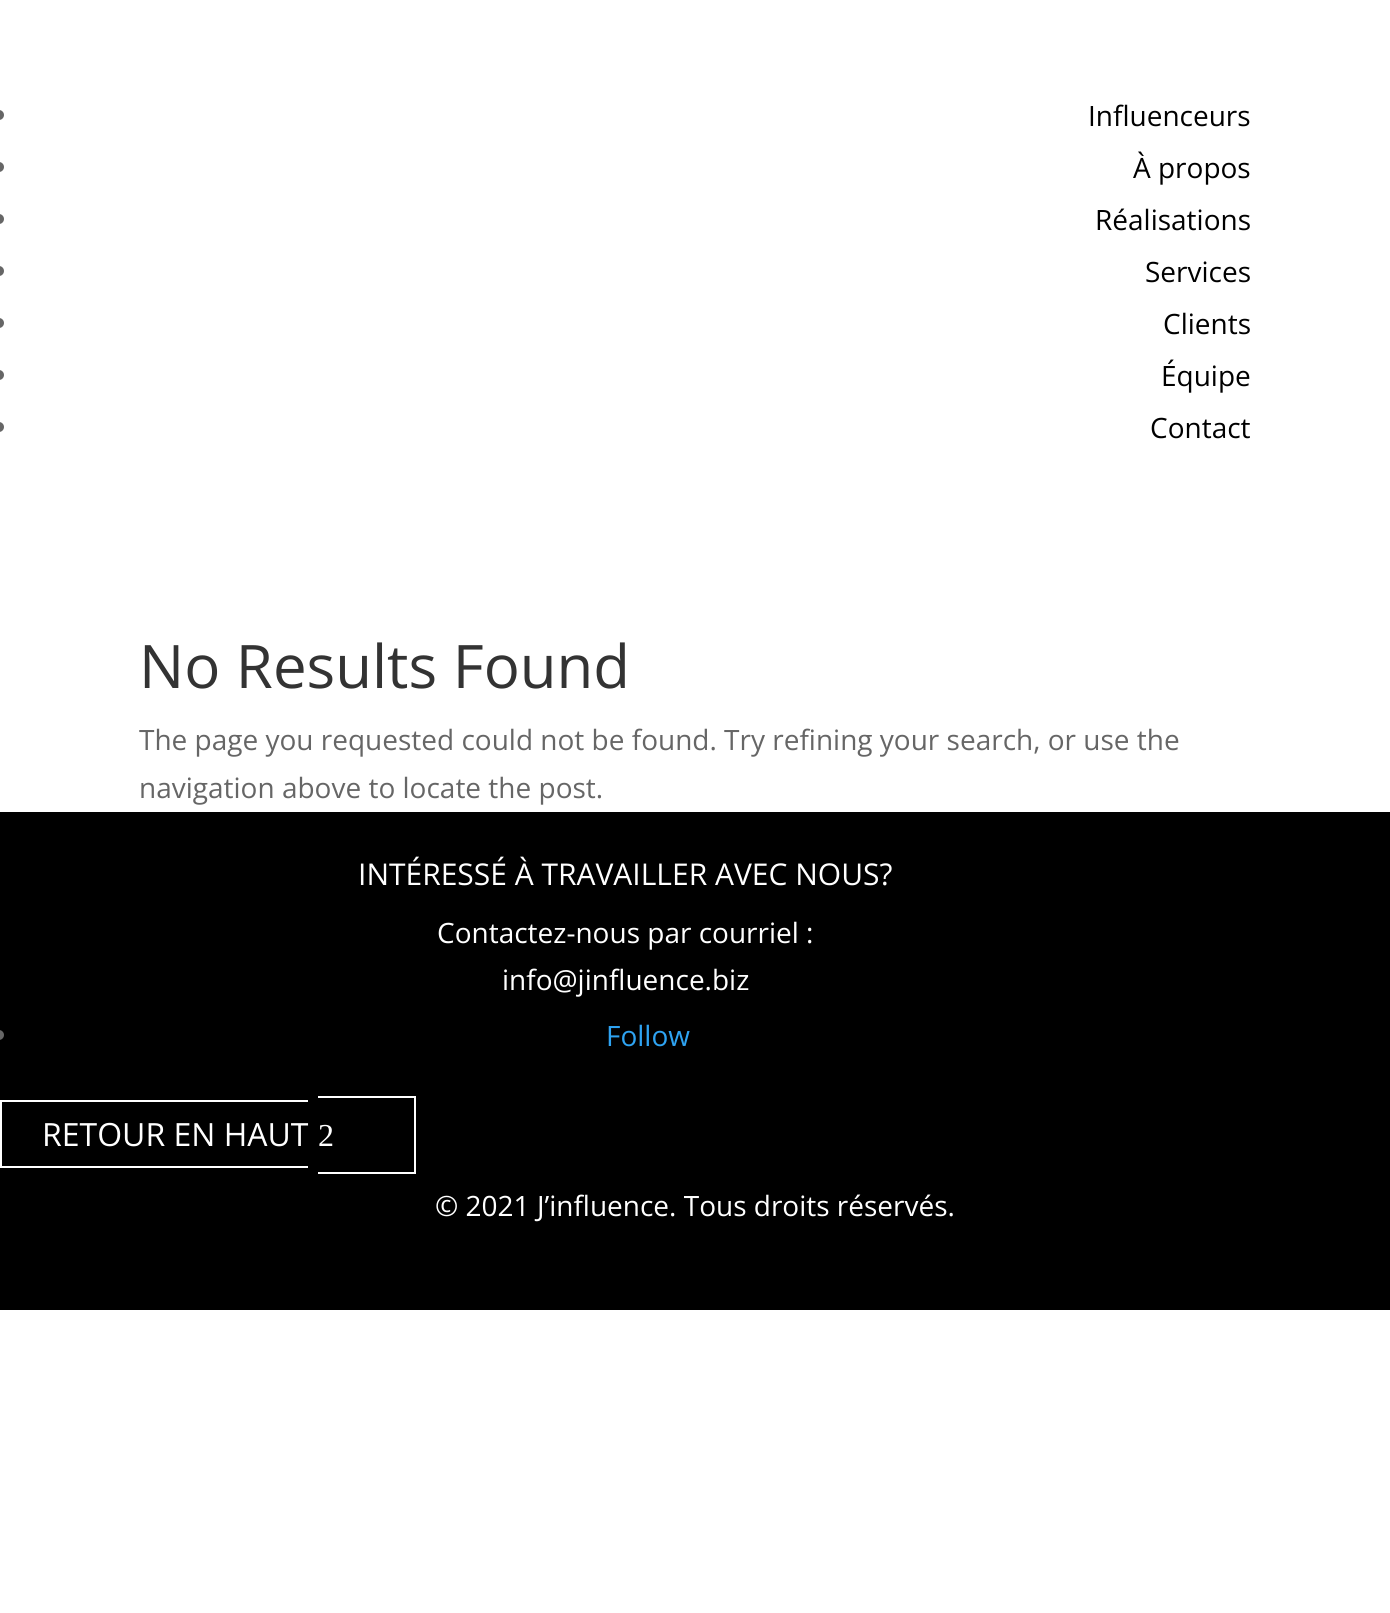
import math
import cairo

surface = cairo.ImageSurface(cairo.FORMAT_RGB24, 1390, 1613)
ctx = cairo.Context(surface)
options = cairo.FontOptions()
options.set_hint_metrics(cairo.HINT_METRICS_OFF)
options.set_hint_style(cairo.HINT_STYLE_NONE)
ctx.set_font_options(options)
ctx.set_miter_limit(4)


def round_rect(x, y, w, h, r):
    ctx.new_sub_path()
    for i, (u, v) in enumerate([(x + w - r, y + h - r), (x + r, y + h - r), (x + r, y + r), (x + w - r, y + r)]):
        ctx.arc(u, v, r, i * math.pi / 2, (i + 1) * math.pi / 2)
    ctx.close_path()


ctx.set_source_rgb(1, 1, 1)
ctx.paint()
ctx.set_source_rgb(0.4, 0.4, 0.4)
round_rect(-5, 110, 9, 10, 5)
ctx.fill()
ctx.select_font_face("Open Sans")
ctx.set_font_size(28)
ctx.set_source_rgb(0, 0, 0)
ctx.move_to(1088, 126)
ctx.show_text("Influenceurs")
ctx.set_source_rgb(0.4, 0.4, 0.4)
round_rect(-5, 162, 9, 10, 5)
ctx.fill()
ctx.set_source_rgb(0, 0, 0)
ctx.move_to(1133, 178)
ctx.show_text("À propos")
ctx.set_source_rgb(0.4, 0.4, 0.4)
round_rect(-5, 214, 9, 10, 5)
ctx.fill()
ctx.set_source_rgb(0, 0, 0)
ctx.move_to(1095, 230)
ctx.show_text("Réalisations")
ctx.set_source_rgb(0.4, 0.4, 0.4)
round_rect(-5, 266, 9, 10, 5)
ctx.fill()
ctx.set_source_rgb(0, 0, 0)
ctx.move_to(1145, 282)
ctx.show_text("Services")
ctx.set_source_rgb(0.4, 0.4, 0.4)
round_rect(-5, 318, 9, 10, 5)
ctx.fill()
ctx.set_source_rgb(0, 0, 0)
ctx.move_to(1163, 334)
ctx.show_text("Clients")
ctx.set_source_rgb(0.4, 0.4, 0.4)
round_rect(-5, 370, 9, 10, 5)
ctx.fill()
ctx.set_source_rgb(0, 0, 0)
ctx.move_to(1161, 386)
ctx.show_text("Équipe")
ctx.set_source_rgb(0.4, 0.4, 0.4)
round_rect(-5, 422, 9, 10, 5)
ctx.fill()
ctx.set_source_rgb(0, 0, 0)
ctx.move_to(1150, 438)
ctx.show_text("Contact")
ctx.set_font_size(60)
ctx.set_source_rgb(0.2, 0.2, 0.2)
ctx.move_to(139, 688)
ctx.show_text("No Results Found")
ctx.set_font_size(28)
ctx.set_source_rgb(0.4, 0.4, 0.4)
ctx.move_to(139, 750)
ctx.show_text("The page you requested could not be found. Try refining your search, or use the")
ctx.move_to(139, 798)
ctx.show_text("navigation above to locate the post.")
ctx.set_source_rgb(0, 0, 0)
ctx.rectangle(0, 812, 1390, 498)
ctx.fill()
ctx.set_font_size(30)
ctx.set_source_rgb(1, 1, 1)
ctx.move_to(358, 885)
ctx.show_text("INTÉRESSÉ À TRAVAILLER AVEC NOUS?")
ctx.set_font_size(28)
ctx.move_to(437, 943)
ctx.show_text("Contactez-nous par courriel :")
ctx.move_to(502, 990)
ctx.show_text("info@jinfluence.biz")
ctx.set_source_rgb(0.4, 0.4, 0.4)
round_rect(-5, 1030, 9, 10, 5)
ctx.fill()
ctx.set_source_rgb(0.18, 0.639, 0.949)
ctx.move_to(606, 1046)
ctx.show_text("Follow")
ctx.set_source_rgb(1, 1, 1)
ctx.rectangle(0, 1100, 308, 2)
ctx.fill()
ctx.rectangle(0, 1166, 308, 2)
ctx.fill()
ctx.rectangle(0, 1100, 2, 68)
ctx.fill()
ctx.rectangle(318, 1096, 98, 2)
ctx.fill()
ctx.rectangle(414, 1096, 2, 78)
ctx.fill()
ctx.rectangle(318, 1172, 98, 2)
ctx.fill()
ctx.set_font_size(32)
ctx.move_to(42, 1146)
ctx.show_text("RETOUR EN HAUT")
ctx.select_font_face("Liberation Serif")
ctx.move_to(318, 1146)
ctx.show_text("2")
ctx.select_font_face("Open Sans")
ctx.set_font_size(28)
ctx.move_to(435, 1216)
ctx.show_text("© 2021 J’influence. Tous droits réservés.")
surface.write_to_png("page.png")
